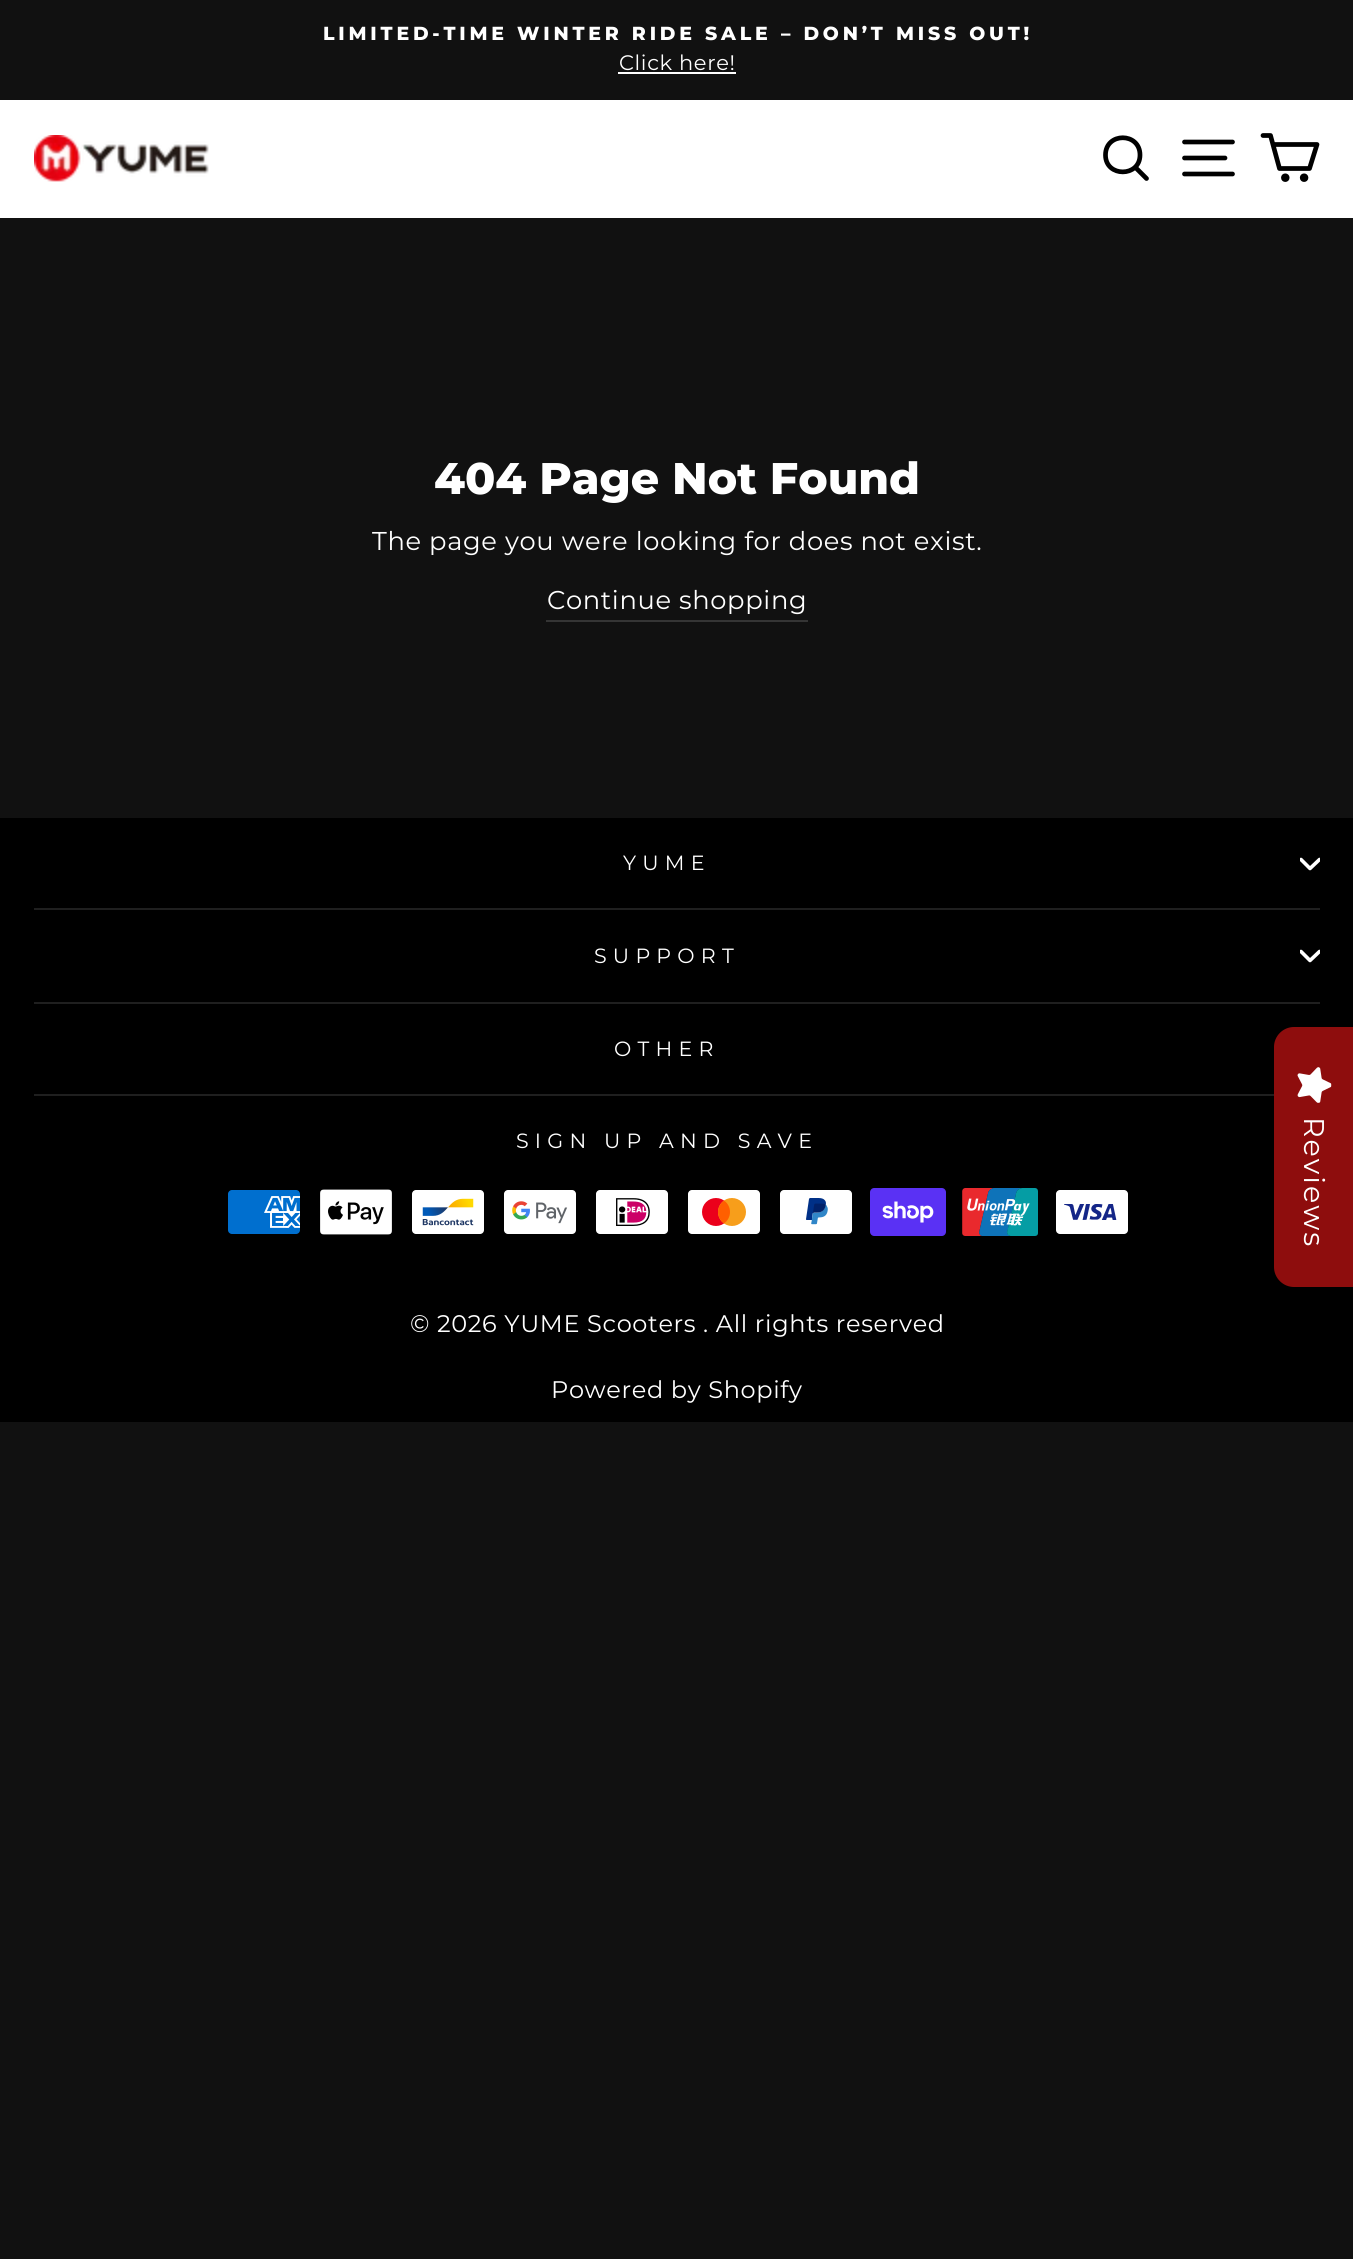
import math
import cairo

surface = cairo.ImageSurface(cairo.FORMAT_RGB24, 1353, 2259)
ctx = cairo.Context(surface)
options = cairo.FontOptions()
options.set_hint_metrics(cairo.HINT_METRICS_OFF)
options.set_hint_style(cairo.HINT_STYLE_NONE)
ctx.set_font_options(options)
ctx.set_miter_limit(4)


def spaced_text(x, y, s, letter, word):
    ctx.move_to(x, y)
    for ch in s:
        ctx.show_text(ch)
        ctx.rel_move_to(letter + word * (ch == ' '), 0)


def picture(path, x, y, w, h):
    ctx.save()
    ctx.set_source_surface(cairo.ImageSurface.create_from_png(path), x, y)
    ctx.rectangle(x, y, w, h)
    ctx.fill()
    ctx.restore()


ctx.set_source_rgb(0.067, 0.067, 0.067)
ctx.paint()
ctx.select_font_face("Montserrat ExtraBold")
ctx.set_font_size(18.9)
ctx.set_source_rgb(1, 1, 1)
spaced_text(323, 40, "LIMITED-TIME WINTER RIDE SALE – DON’T MISS OUT!", 3.8, 0)
ctx.select_font_face("Montserrat")
ctx.set_font_size(21)
spaced_text(619, 70, "Click here!", 0.65, 0)
ctx.rectangle(618, 72, 118, 2)
ctx.fill()
ctx.rectangle(0, 100, 1353, 118)
ctx.fill()
picture("img1.png", 34, 135, 175, 47)
ctx.new_path()
ctx.move_to(1140, 155)
ctx.curve_to(1140, 177.5, 1105.5, 177.5, 1105.5, 155)
ctx.curve_to(1105.5, 132, 1140, 132, 1140, 155)
ctx.close_path()
ctx.move_to(1146.5, 178.5)
ctx.line_to(1135.5, 167.5)
ctx.set_source_rgb(0, 0, 0)
ctx.set_line_width(4.7)
ctx.set_line_cap(cairo.LINE_CAP_ROUND)
ctx.set_line_join(cairo.LINE_JOIN_ROUND)
ctx.stroke()
ctx.new_path()
ctx.move_to(1184.5, 142)
ctx.line_to(1232.5, 142)
ctx.move_to(1184.5, 158)
ctx.line_to(1225, 158)
ctx.move_to(1184.5, 174)
ctx.line_to(1232.5, 174)
ctx.stroke()
ctx.new_path()
ctx.move_to(1273, 144.5)
ctx.line_to(1317, 144.5)
ctx.line_to(1309.5, 168.5)
ctx.line_to(1279.5, 168.5)
ctx.line_to(1270.5, 135.5)
ctx.line_to(1263, 135.5)
ctx.stroke()
ctx.arc(1285.3, 177.7, 1.9, 0, 2 * math.pi)
ctx.fill_preserve()
ctx.set_line_cap(cairo.LINE_CAP_BUTT)
ctx.set_line_join(cairo.LINE_JOIN_MITER)
ctx.stroke()
ctx.arc(1304.1, 177.7, 1.9, 0, 2 * math.pi)
ctx.fill_preserve()
ctx.stroke()
ctx.select_font_face("Montserrat ExtraBold")
ctx.set_font_size(44.25)
ctx.set_source_rgb(1, 1, 1)
ctx.move_to(434, 494)
ctx.show_text("404 Page Not Found")
ctx.select_font_face("Montserrat")
ctx.set_font_size(25.75)
spaced_text(372, 550, "The page you were looking for does not exist.", 0.65, 0)
ctx.set_source_rgb(0.208, 0.208, 0.208)
ctx.rectangle(546, 620, 262, 2)
ctx.fill()
ctx.set_source_rgb(1, 1, 1)
spaced_text(547, 609, "Continue shopping", 0.65, 0)
ctx.set_source_rgb(0, 0, 0)
ctx.rectangle(0, 818, 1353, 604)
ctx.fill()
ctx.set_font_size(20.6)
ctx.set_source_rgb(1, 1, 1)
spaced_text(623, 870, "YUME", 6.2, 0)
ctx.save()
ctx.rectangle(1300, 854, 20, 20)
ctx.clip()
ctx.new_path()
ctx.move_to(1301, 859.5)
ctx.line_to(1310, 868.5)
ctx.line_to(1319.5, 859.5)
ctx.set_line_width(3.6)
ctx.set_line_cap(cairo.LINE_CAP_ROUND)
ctx.set_line_join(cairo.LINE_JOIN_ROUND)
ctx.stroke()
ctx.restore()
ctx.set_source_rgb(0.122, 0.122, 0.122)
ctx.rectangle(34, 908, 1286, 2)
ctx.fill()
ctx.set_source_rgb(1, 1, 1)
spaced_text(594, 963, "SUPPORT", 6.2, 0)
ctx.save()
ctx.rectangle(1300, 946, 20, 20)
ctx.clip()
ctx.new_path()
ctx.move_to(1301, 951.5)
ctx.line_to(1310, 960.5)
ctx.line_to(1319.5, 951.5)
ctx.set_line_width(3.6)
ctx.set_line_cap(cairo.LINE_CAP_ROUND)
ctx.set_line_join(cairo.LINE_JOIN_ROUND)
ctx.stroke()
ctx.restore()
ctx.set_source_rgb(0.122, 0.122, 0.122)
ctx.rectangle(34, 1002, 1286, 2)
ctx.fill()
ctx.set_source_rgb(1, 1, 1)
spaced_text(614, 1056, "OTHER", 6.2, 0)
ctx.set_source_rgb(0.122, 0.122, 0.122)
ctx.rectangle(34, 1094, 1240, 2)
ctx.fill()
ctx.set_source_rgb(1, 1, 1)
spaced_text(516, 1148, "SIGN UP AND SAVE", 6.2, 0)
picture("img2.png", 228, 1190, 72, 44)
picture("img3.png", 320, 1189, 72, 46)
picture("img4.png", 412, 1190, 72, 44)
picture("img5.png", 504, 1190, 72, 44)
picture("img6.png", 596, 1190, 72, 44)
picture("img7.png", 688, 1190, 72, 44)
picture("img8.png", 780, 1190, 72, 44)
picture("img9.png", 870, 1188, 76, 48)
picture("img10.png", 962, 1188, 76, 48)
picture("img11.png", 1056, 1190, 72, 44)
ctx.set_font_size(24)
spaced_text(410, 1332, "© 2026 YUME Scooters . All rights reserved", 0.65, 0)
spaced_text(551, 1398, "Powered by Shopify", 0.65, 0)
ctx.set_source_rgb(0.557, 0.051, 0.051)
ctx.new_path()
ctx.move_to(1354, 1027)
ctx.line_to(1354, 1287)
ctx.line_to(1294, 1287)
ctx.curve_to(1283, 1287, 1274, 1278, 1274, 1267)
ctx.line_to(1274, 1047)
ctx.curve_to(1274, 1036, 1283, 1027, 1294, 1027)
ctx.close_path()
ctx.fill()
picture("img12.png", 1297, 1067, 35, 36)
ctx.set_font_size(28.5)
ctx.set_source_rgb(1, 1, 1)
ctx.save()
ctx.translate(1304, 1117)
ctx.rotate(90 * math.pi / 180)
spaced_text(0, 0, "Reviews", 2, 0)
ctx.restore()
surface.write_to_png("page.png")
